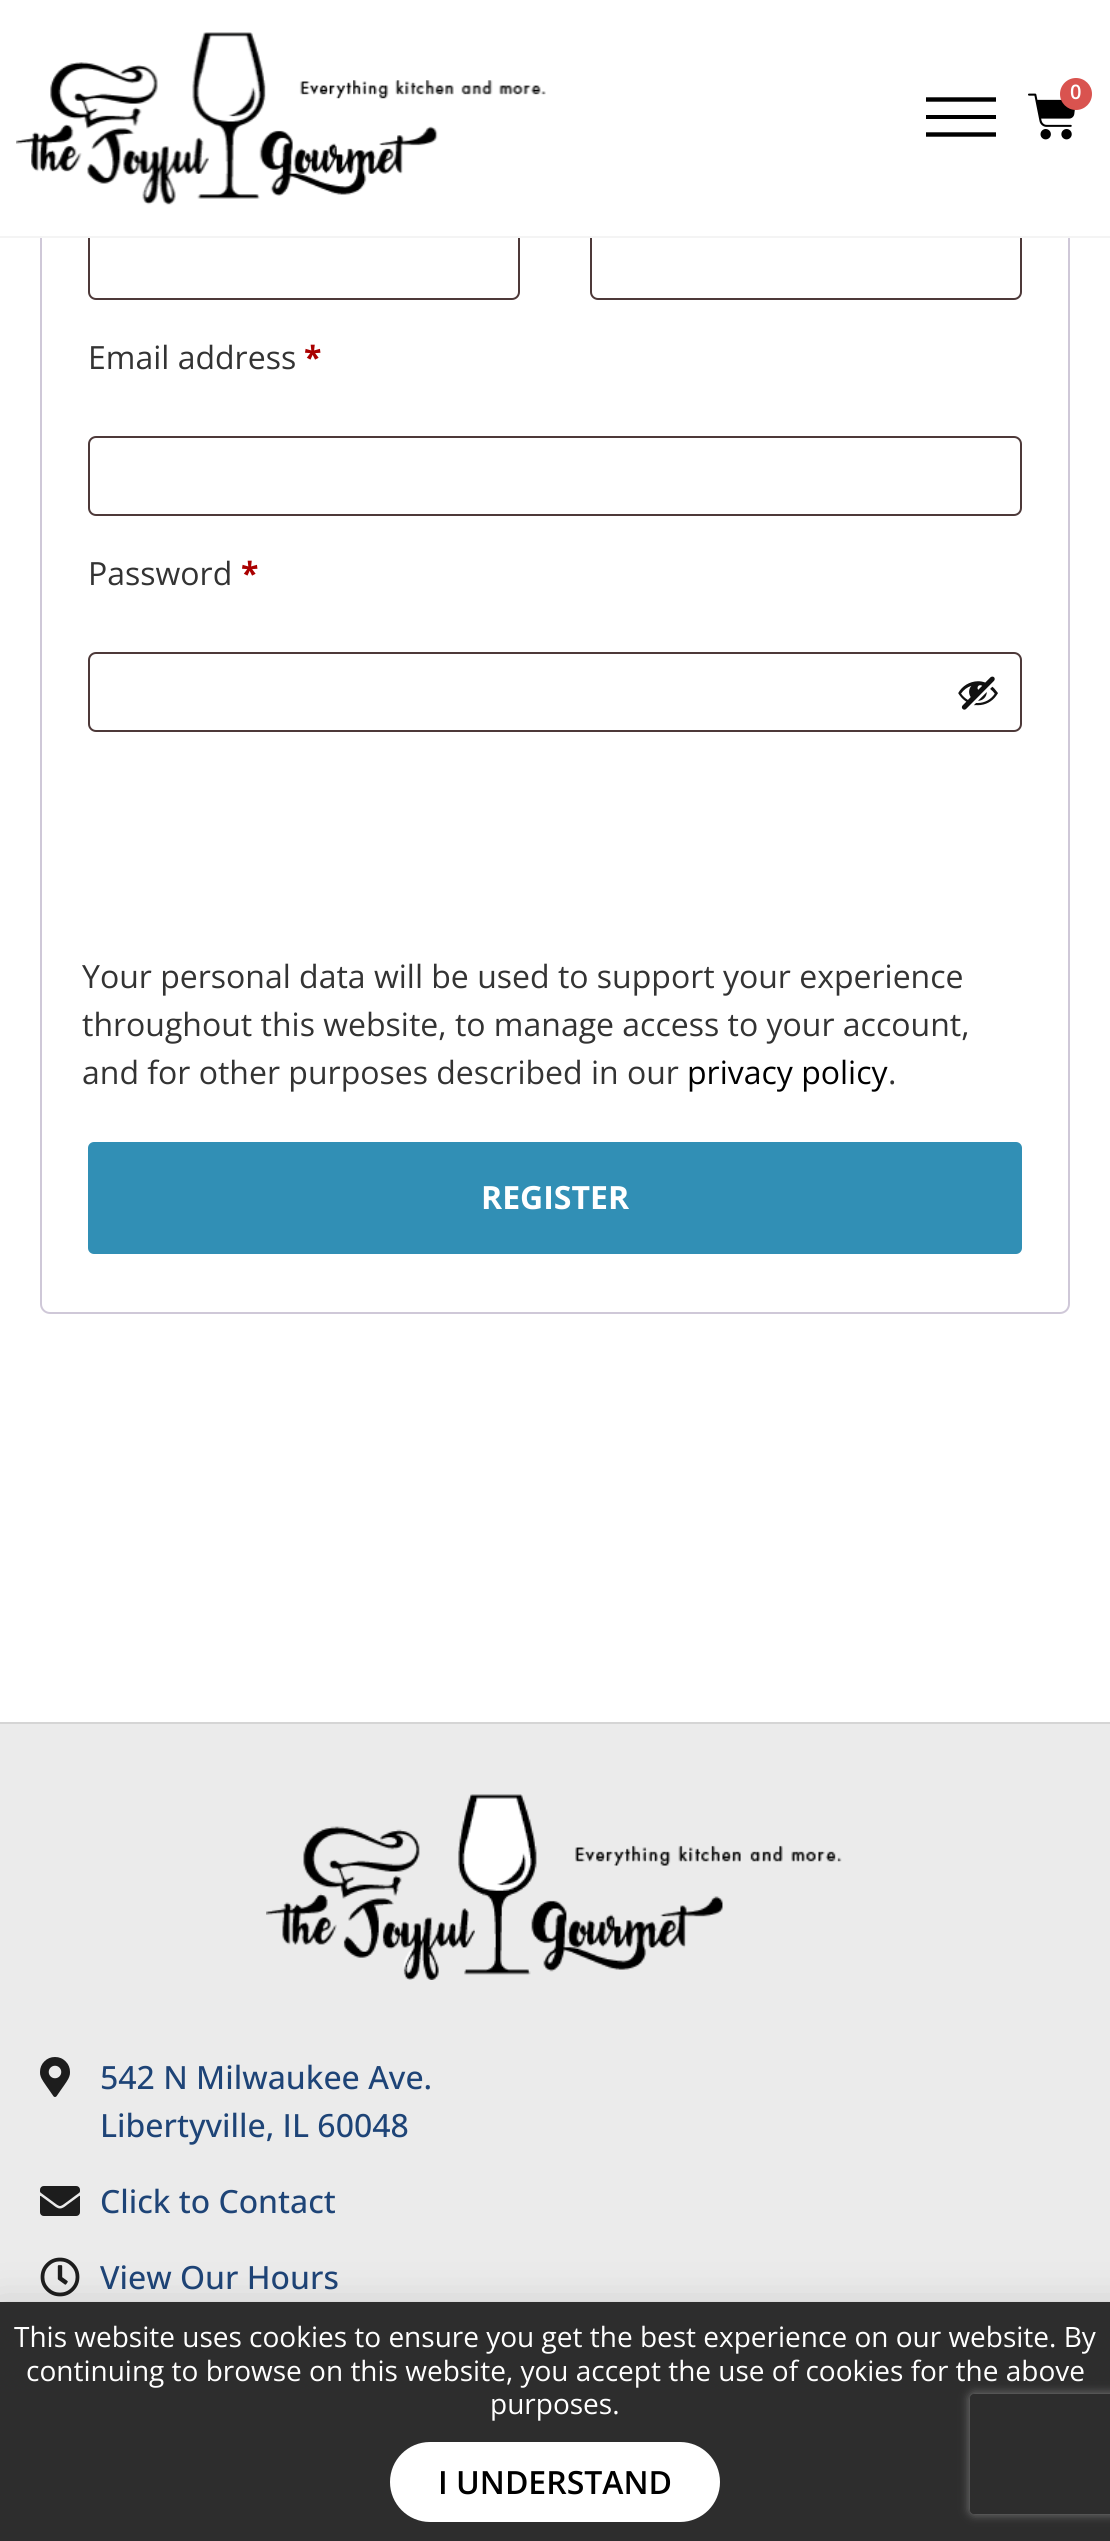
import math
import cairo

surface = cairo.ImageSurface(cairo.FORMAT_RGB24, 1110, 2541)
ctx = cairo.Context(surface)
options = cairo.FontOptions()
options.set_hint_metrics(cairo.HINT_METRICS_OFF)
options.set_hint_style(cairo.HINT_STYLE_NONE)
ctx.set_font_options(options)
ctx.set_miter_limit(4)


def round_rect(x, y, w, h, r):
    ctx.new_sub_path()
    for i, (u, v) in enumerate([(x + w - r, y + h - r), (x + r, y + h - r), (x + r, y + r), (x + w - r, y + r)]):
        ctx.arc(u, v, r, i * math.pi / 2, (i + 1) * math.pi / 2)
    ctx.close_path()


def shadow(x, y, w, h, r, blur, alpha):
    ctx.push_group_with_content(cairo.CONTENT_ALPHA)
    ctx.set_operator(cairo.OPERATOR_SOURCE)
    for i in range(15, -16, -2):
        e = blur * i / 6
        if min(w, h) + 2 * e > 0:
            ctx.set_source_rgba(0, 0, 0, alpha * math.erfc((i - 1) / 8.5) / 2)
            round_rect(x - e, y - e, w + 2 * e, h + 2 * e, max(0, min(r + e + blur * .6, min(w, h) / 2 + e)))
            ctx.fill()
    ctx.mask(ctx.pop_group())


def picture(path, x, y, w, h):
    ctx.save()
    ctx.set_source_surface(cairo.ImageSurface.create_from_png(path), x, y)
    ctx.rectangle(x, y, w, h)
    ctx.fill()
    ctx.restore()


ctx.set_source_rgb(1, 1, 1)
ctx.paint()
round_rect(41, 61, 1028, 1252, 9)
ctx.set_source_rgb(0.812, 0.784, 0.847)
ctx.stroke()
round_rect(89, 221, 430, 78, 7)
ctx.set_source_rgb(0.302, 0.224, 0.224)
ctx.stroke()
round_rect(591, 221, 430, 78, 7)
ctx.stroke()
ctx.set_source_rgb(1, 1, 1)
ctx.rectangle(40, 60, 1030, 176)
ctx.fill()
ctx.set_source_rgb(0.957, 0.957, 0.957)
ctx.rectangle(0, 236, 1110, 2)
ctx.fill()
picture("img1.png", 16, 32, 530, 173)
picture("img2.png", 1028, 93, 47, 47)
ctx.set_source_rgb(0.851, 0.325, 0.31)
ctx.arc(1076, 94, 16, 0, 2 * math.pi)
ctx.fill()
ctx.select_font_face("Open Sans SemiBold")
ctx.set_font_size(20)
ctx.set_source_rgb(1, 1, 1)
ctx.move_to(1070, 99)
ctx.show_text("0")
ctx.new_path()
ctx.move_to(926, 99.5)
ctx.line_to(996, 99.5)
ctx.set_source_rgb(0, 0, 0)
ctx.set_line_width(4.4)
ctx.stroke()
ctx.rectangle(926, 115, 70, 4)
ctx.fill()
ctx.new_path()
ctx.move_to(926, 134.5)
ctx.line_to(996, 134.5)
ctx.stroke()
ctx.select_font_face("Open Sans")
ctx.set_font_size(32)
ctx.set_source_rgb(0.2, 0.2, 0.2)
ctx.move_to(88, 369)
ctx.show_text("Email address")
ctx.select_font_face("Open Sans", cairo.FONT_SLANT_NORMAL, cairo.FONT_WEIGHT_BOLD)
ctx.set_source_rgb(0.667, 0, 0)
ctx.move_to(304, 369)
ctx.show_text("*")
round_rect(89, 437, 932, 78, 7)
ctx.set_source_rgb(0.302, 0.224, 0.224)
ctx.set_line_width(2)
ctx.stroke()
ctx.select_font_face("Open Sans")
ctx.set_source_rgb(0.2, 0.2, 0.2)
ctx.move_to(88, 585)
ctx.show_text("Password")
ctx.select_font_face("Open Sans", cairo.FONT_SLANT_NORMAL, cairo.FONT_WEIGHT_BOLD)
ctx.set_source_rgb(0.667, 0, 0)
ctx.move_to(241, 585)
ctx.show_text("*")
round_rect(89, 653, 932, 78, 7)
ctx.set_source_rgb(0.302, 0.224, 0.224)
ctx.stroke()
picture("img3.png", 958, 676, 40, 34)
ctx.select_font_face("Open Sans")
ctx.set_source_rgb(0.2, 0.2, 0.2)
ctx.move_to(82, 988)
ctx.show_text("Your personal data will be used to support your experience")
ctx.move_to(82, 1036)
ctx.show_text("throughout this website, to manage access to your account,")
ctx.move_to(82, 1084)
ctx.show_text("and for other purposes described in our")
ctx.set_source_rgb(0, 0, 0)
ctx.move_to(687, 1084)
ctx.show_text("privacy policy")
ctx.set_source_rgb(0.2, 0.2, 0.2)
ctx.move_to(888, 1084)
ctx.show_text(".")
ctx.set_source_rgb(0.192, 0.561, 0.71)
round_rect(88, 1142, 934, 112, 6)
ctx.fill()
ctx.select_font_face("Open Sans", cairo.FONT_SLANT_NORMAL, cairo.FONT_WEIGHT_BOLD)
ctx.set_source_rgb(1, 1, 1)
ctx.move_to(481, 1209)
ctx.show_text("REGISTER")
ctx.set_source_rgb(0.918, 0.918, 0.918)
ctx.rectangle(0, 1724, 1110, 578)
ctx.fill()
ctx.set_source_rgb(0.835, 0.835, 0.835)
ctx.rectangle(0, 1722, 1110, 2)
ctx.fill()
picture("img4.png", 266, 1794, 576, 186)
picture("img5.png", 40, 2057, 30, 40)
ctx.select_font_face("Open Sans Medium")
ctx.set_source_rgb(0.118, 0.267, 0.467)
ctx.move_to(100, 2089)
ctx.show_text("542 N Milwaukee Ave.")
ctx.move_to(100, 2137)
ctx.show_text("Libertyville, IL 60048")
picture("img6.png", 40, 2186, 40, 30)
ctx.move_to(100, 2213)
ctx.show_text("Click to Contact")
picture("img7.png", 40, 2257, 40, 40)
ctx.move_to(100, 2289)
ctx.show_text("View Our Hours")
ctx.set_source_rgb(0, 0, 0)
shadow(-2, 2312, 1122, 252, 0, 23, 0.2)
ctx.set_source_rgb(0.176, 0.176, 0.176)
ctx.rectangle(0, 2302, 1110, 239)
ctx.fill()
ctx.select_font_face("Open Sans")
ctx.set_font_size(28)
ctx.set_source_rgb(1, 1, 1)
ctx.move_to(14, 2347)
ctx.show_text("This website uses cookies to ensure you get the best experience on our website. By")
ctx.move_to(26, 2381)
ctx.show_text("continuing to browse on this website, you accept the use of cookies for the above")
ctx.move_to(490, 2414)
ctx.show_text("purposes.")
round_rect(390, 2442, 330, 80, 40)
ctx.fill()
ctx.select_font_face("Open Sans SemiBold")
ctx.set_font_size(32)
ctx.set_source_rgb(0, 0, 0)
ctx.move_to(438, 2494)
ctx.show_text("I UNDERSTAND")
ctx.save()
ctx.set_fill_rule(cairo.FILL_RULE_EVEN_ODD)
ctx.new_path()
ctx.move_to(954, 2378)
ctx.line_to(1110, 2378)
ctx.line_to(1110, 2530)
ctx.line_to(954, 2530)
ctx.close_path()
ctx.move_to(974, 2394)
ctx.line_to(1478, 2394)
ctx.curve_to(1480, 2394, 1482, 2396, 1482, 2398)
ctx.line_to(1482, 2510)
ctx.curve_to(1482, 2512, 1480, 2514, 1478, 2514)
ctx.line_to(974, 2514)
ctx.curve_to(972, 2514, 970, 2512, 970, 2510)
ctx.line_to(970, 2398)
ctx.curve_to(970, 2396, 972, 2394, 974, 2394)
ctx.close_path()
ctx.clip()
ctx.set_source_rgb(0.502, 0.502, 0.502)
shadow(970, 2394, 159, 120, 4, 5, 1)
ctx.restore()
surface.write_to_png("page.png")
